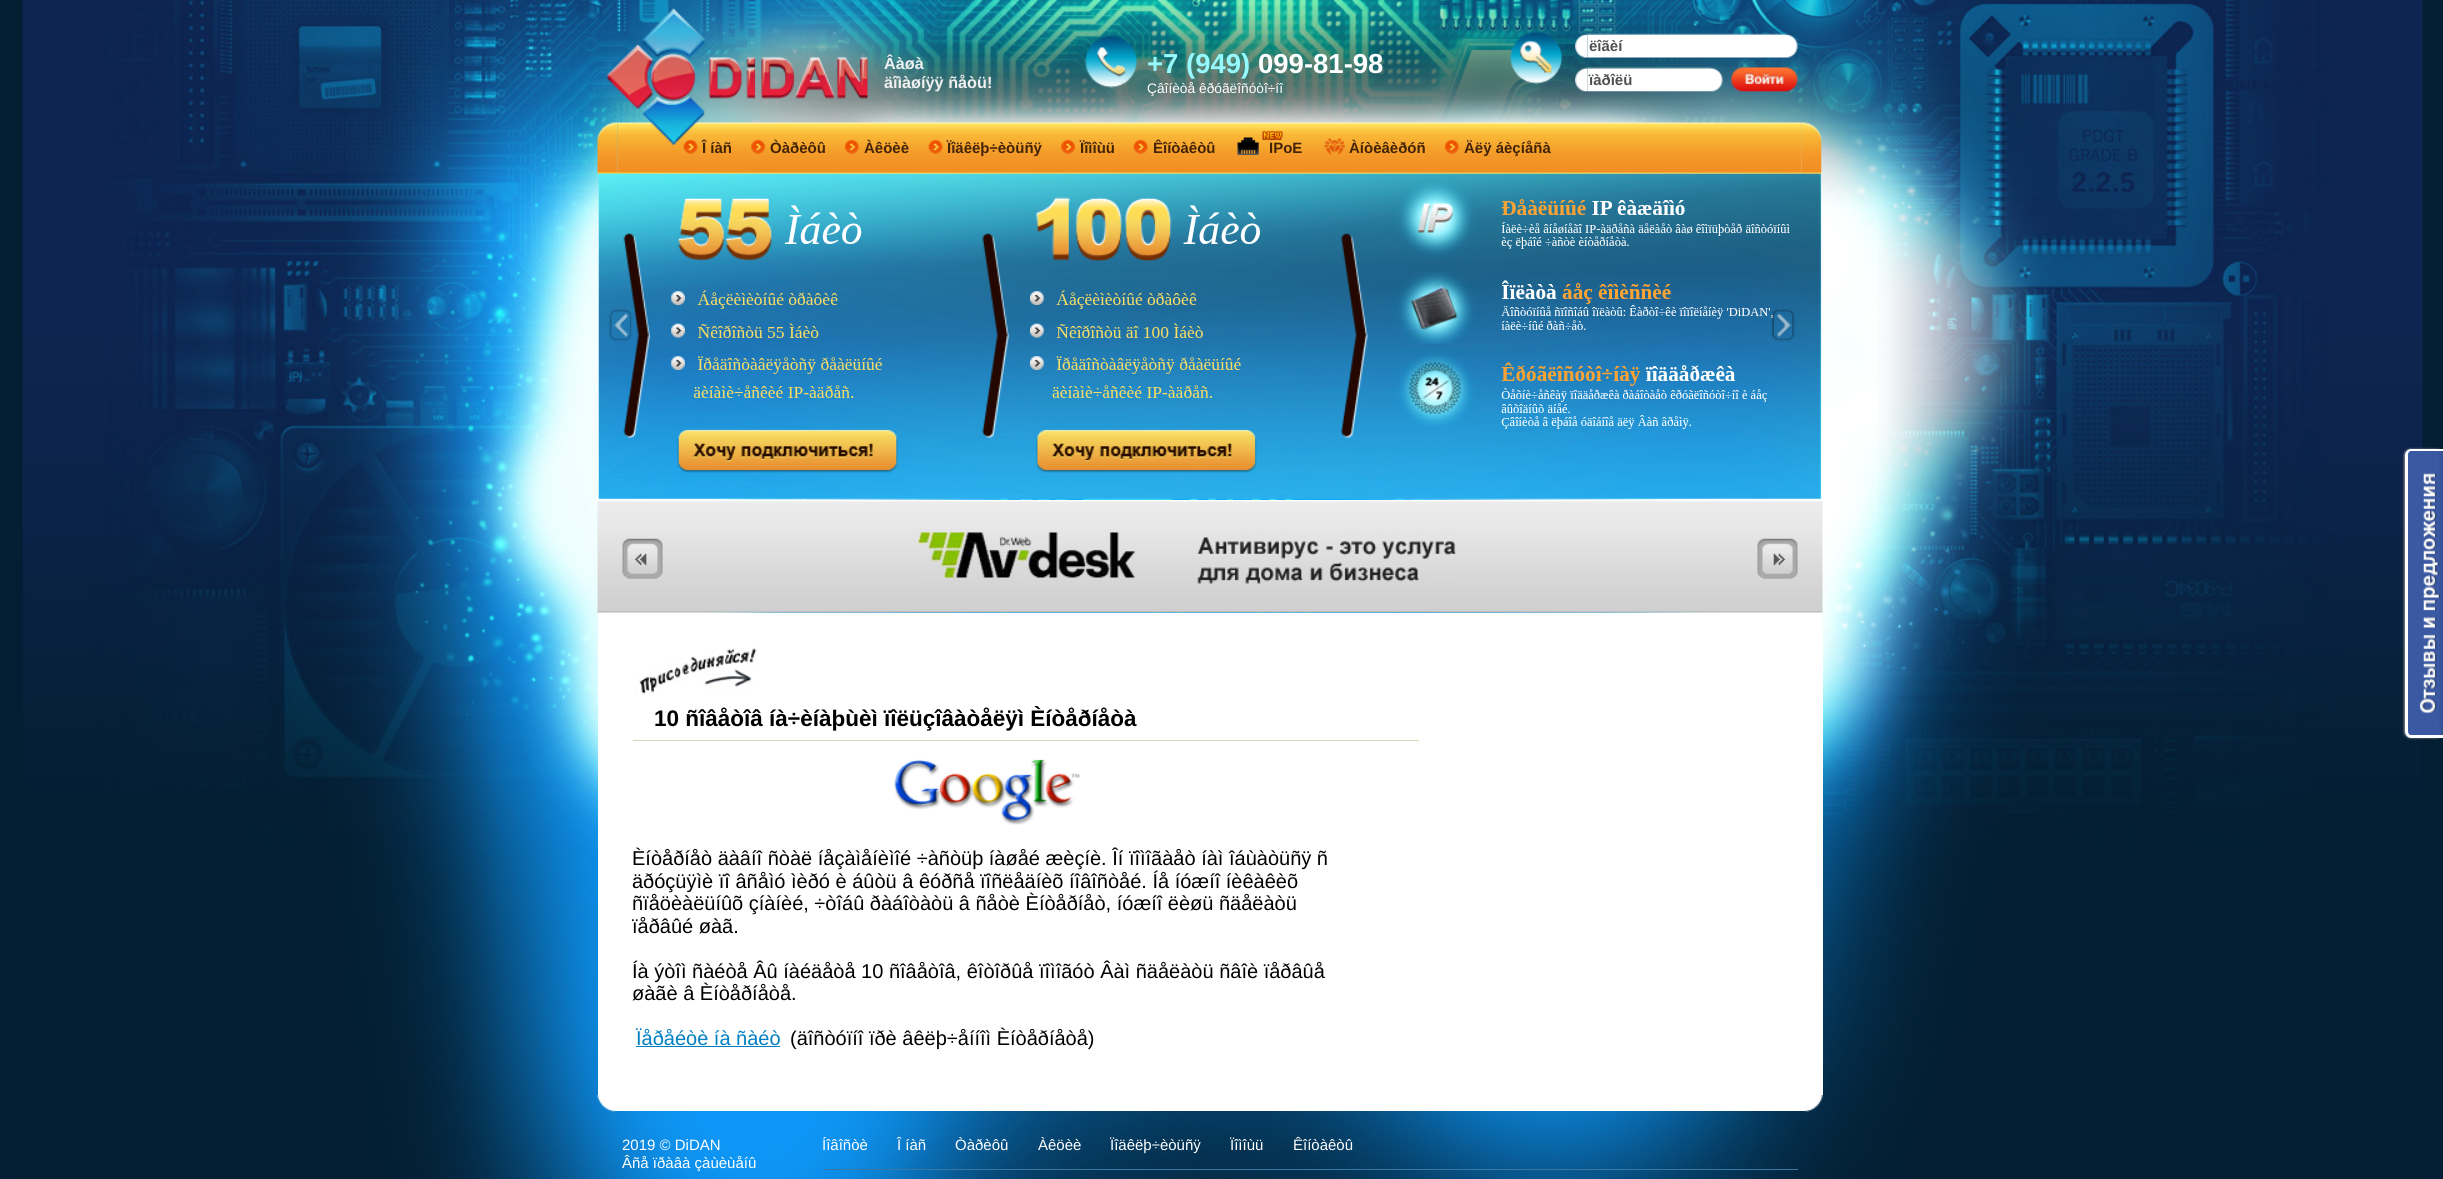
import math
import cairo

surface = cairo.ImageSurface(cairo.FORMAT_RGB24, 2443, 1179)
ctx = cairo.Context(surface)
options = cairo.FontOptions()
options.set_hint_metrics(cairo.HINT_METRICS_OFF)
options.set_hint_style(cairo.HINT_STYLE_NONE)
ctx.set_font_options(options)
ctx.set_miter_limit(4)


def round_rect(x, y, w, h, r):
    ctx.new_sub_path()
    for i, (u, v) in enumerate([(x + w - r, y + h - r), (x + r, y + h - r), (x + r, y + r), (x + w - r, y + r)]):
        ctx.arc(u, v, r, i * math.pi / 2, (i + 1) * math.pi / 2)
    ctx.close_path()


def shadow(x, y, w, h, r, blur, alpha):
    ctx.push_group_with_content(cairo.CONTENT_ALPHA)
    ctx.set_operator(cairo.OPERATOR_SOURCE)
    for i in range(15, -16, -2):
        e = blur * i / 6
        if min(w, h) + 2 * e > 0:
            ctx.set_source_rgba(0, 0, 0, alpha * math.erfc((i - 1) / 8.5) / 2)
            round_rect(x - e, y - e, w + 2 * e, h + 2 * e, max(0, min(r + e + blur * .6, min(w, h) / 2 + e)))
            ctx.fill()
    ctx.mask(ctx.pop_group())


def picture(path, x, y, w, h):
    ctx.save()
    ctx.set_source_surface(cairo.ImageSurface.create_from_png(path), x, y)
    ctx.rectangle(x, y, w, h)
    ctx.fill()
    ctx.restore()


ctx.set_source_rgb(0.012, 0.118, 0.196)
ctx.paint()
picture("img1.png", 22, 0, 2401, 1179)
picture("img12.png", 597, 122, 21, 52)
picture("img13.png", 617, 122, 1185, 52)
picture("img15.png", 683, 139, 15, 15)
ctx.select_font_face("Liberation Sans", cairo.FONT_SLANT_NORMAL, cairo.FONT_WEIGHT_BOLD)
ctx.set_font_size(15)
ctx.set_source_rgb(0.267, 0.137, 0.024)
ctx.move_to(702, 153)
ctx.show_text("Î íàñ")
picture("img16.png", 751, 139, 15, 15)
ctx.move_to(770, 153)
ctx.show_text("Òàðèôû")
picture("img17.png", 844, 139, 15, 15)
ctx.move_to(864, 153)
ctx.show_text("Àêöèè")
picture("img2.png", 607, 8, 261, 137)
ctx.set_font_size(16.25)
ctx.set_source_rgb(0.941, 0.941, 0.941)
ctx.move_to(884, 69)
ctx.show_text("Âàøà")
ctx.move_to(884, 88)
ctx.show_text("äîìàøíÿÿ ñåòü!")
picture("img3.png", 1085, 35, 53, 53)
ctx.set_font_size(27.5)
ctx.set_source_rgb(0.584, 0.973, 0.992)
ctx.move_to(1147, 73)
ctx.show_text("+7 (949)")
ctx.set_source_rgb(1, 1, 1)
ctx.move_to(1258, 73)
ctx.show_text("099-81-98")
ctx.select_font_face("Liberation Sans")
ctx.set_font_size(13.75)
ctx.move_to(1147, 93)
ctx.show_text("Çâîíèòå êðóãëîñóòî÷íî")
picture("img4.png", 1510, 31, 53, 53)
picture("img5.png", 1575, 33, 13, 25)
picture("img6.png", 1587, 33, 198, 25)
ctx.rectangle(1588, 35, 197, 1)
ctx.fill()
ctx.select_font_face("Liberation Sans", cairo.FONT_SLANT_NORMAL, cairo.FONT_WEIGHT_BOLD)
ctx.set_font_size(15)
ctx.set_source_rgb(0.314, 0.314, 0.314)
ctx.move_to(1589, 51)
ctx.show_text("ëîãèí")
picture("img7.png", 1785, 33, 13, 25)
picture("img8.png", 1575, 67, 13, 25)
picture("img9.png", 1587, 67, 123, 25)
ctx.move_to(1589, 85)
ctx.show_text("ïàðîëü")
picture("img10.png", 1710, 67, 13, 25)
picture("img11.png", 1731, 67, 67, 25)
picture("img14.png", 1262, 131, 21, 9)
picture("img15.png", 928, 139, 15, 15)
ctx.set_source_rgb(0.267, 0.137, 0.024)
ctx.move_to(947, 153)
ctx.show_text("Ïîäêëþ÷èòüñÿ")
picture("img18.png", 1061, 139, 15, 15)
ctx.move_to(1080, 153)
ctx.show_text("Ïîìîùü")
picture("img15.png", 1133, 139, 15, 15)
ctx.move_to(1153, 153)
ctx.show_text("Êîíòàêòû")
picture("img19.png", 1237, 137, 22, 18)
ctx.move_to(1269, 153)
ctx.show_text("IPoE")
picture("img20.png", 1323, 138, 22, 17)
ctx.move_to(1349, 153)
ctx.show_text("Àíòèâèðóñ")
picture("img17.png", 1444, 139, 15, 15)
ctx.move_to(1464, 153)
ctx.show_text("Äëÿ áèçíåñà")
picture("img21.png", 1801, 122, 21, 52)
picture("img22.png", 598, 173, 1224, 326)
picture("img23.png", 597, 500, 1226, 113)
picture("img24.png", 622, 538, 41, 41)
picture("img25.png", 918, 532, 538, 52)
picture("img26.png", 1757, 538, 41, 41)
ctx.set_source_rgb(1, 1, 1)
ctx.rectangle(598, 613, 1225, 482)
ctx.fill()
picture("img27.png", 634, 647, 123, 48)
ctx.set_source_rgb(0.855, 0.831, 0.694)
ctx.rectangle(633, 740, 786, 1)
ctx.fill()
ctx.set_font_size(22.5)
ctx.set_source_rgb(0, 0, 0)
ctx.move_to(654, 726)
ctx.show_text("10 ñîâåòîâ íà÷èíàþùèì ïîëüçîâàòåëÿì Èíòåðíåòà")
picture("img28.png", 894, 759, 186, 66)
ctx.select_font_face("Liberation Sans")
ctx.set_font_size(20)
ctx.move_to(632, 865)
ctx.show_text("Èíòåðíåò äàâíî ñòàë íåçàìåíèìîé ÷àñòüþ íàøåé æèçíè. Îí ïîìîãàåò íàì îáùàòüñÿ ñ")
ctx.move_to(632, 888)
ctx.show_text("äðóçüÿìè ïî âñåìó ìèðó è áûòü â êóðñå ïîñëåäíèõ íîâîñòåé. Íå íóæíî íèêàêèõ")
ctx.move_to(632, 910)
ctx.show_text("ñïåöèàëüíûõ çíàíèé, ÷òîáû ðàáîòàòü â ñåòè Èíòåðíåò, íóæíî ëèøü ñäåëàòü")
ctx.move_to(632, 933)
ctx.show_text("ïåðâûé øàã.")
ctx.move_to(632, 978)
ctx.show_text("Íà ýòîì ñàéòå Âû íàéäåòå 10 ñîâåòîâ, êîòîðûå ïîìîãóò Âàì ñäåëàòü ñâîè ïåðâûå")
ctx.move_to(632, 1000)
ctx.show_text("øàãè â Èíòåðíåòå.")
ctx.set_source_rgb(0, 0.502, 0.765)
ctx.move_to(636, 1045)
ctx.show_text("Ïåðåéòè íà ñàéò")
ctx.rectangle(636, 1046, 144, 1)
ctx.fill()
ctx.set_source_rgb(0, 0, 0)
ctx.move_to(790, 1045)
ctx.show_text("(äîñòóïíî ïðè âêëþ÷åííîì Èíòåðíåòå)")
picture("img29.png", 597, 1095, 18, 17)
ctx.set_source_rgb(1, 1, 1)
ctx.rectangle(615, 1095, 1190, 16)
ctx.fill()
picture("img30.png", 1805, 1095, 18, 17)
ctx.set_font_size(15)
ctx.move_to(622, 1150)
ctx.show_text("2019 © DiDAN")
ctx.move_to(622, 1168)
ctx.show_text("Âñå ïðàâà çàùèùåíû")
ctx.move_to(822, 1150)
ctx.show_text("Íîâîñòè")
ctx.move_to(897, 1150)
ctx.show_text("Î íàñ")
ctx.move_to(955, 1150)
ctx.show_text("Òàðèôû")
ctx.move_to(1038, 1150)
ctx.show_text("Àêöèè")
ctx.move_to(1110, 1150)
ctx.show_text("Ïîäêëþ÷èòüñÿ")
ctx.move_to(1230, 1150)
ctx.show_text("Ïîìîùü")
ctx.move_to(1293, 1150)
ctx.show_text("Êîíòàêòû")
ctx.set_source_rgb(0.231, 0.467, 0.631)
ctx.rectangle(823, 1169, 975, 1)
ctx.fill()
ctx.set_source_rgb(0.533, 0.533, 0.533)
shadow(2404, 449, 39, 289, 6, 1, 1)
ctx.set_source_rgb(0.227, 0.349, 0.635)
ctx.new_path()
ctx.move_to(2411, 449)
ctx.line_to(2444, 449)
ctx.line_to(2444, 738)
ctx.line_to(2411, 738)
ctx.curve_to(2407.5, 738, 2405, 735.5, 2405, 732)
ctx.line_to(2405, 455)
ctx.curve_to(2405, 451.5, 2407.5, 449, 2411, 449)
ctx.close_path()
ctx.fill()
picture("img31.png", 2439, 451, 4, 284)
ctx.set_source_rgb(1, 1, 1)
ctx.set_fill_rule(cairo.FILL_RULE_EVEN_ODD)
ctx.new_path()
ctx.move_to(2411, 449)
ctx.line_to(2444, 449)
ctx.line_to(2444, 738)
ctx.line_to(2411, 738)
ctx.curve_to(2408, 738, 2405, 735, 2405, 731)
ctx.line_to(2405, 455)
ctx.curve_to(2405, 452, 2408, 449, 2411, 449)
ctx.close_path()
ctx.move_to(2411, 451)
ctx.line_to(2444, 451)
ctx.line_to(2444, 735)
ctx.line_to(2411, 735)
ctx.curve_to(2409, 735, 2408, 733, 2408, 731)
ctx.line_to(2408, 455)
ctx.curve_to(2408, 453, 2409, 451, 2411, 451)
ctx.close_path()
ctx.fill()
picture("img32.png", 2419, 473, 21, 241)
surface.write_to_png("page.png")
